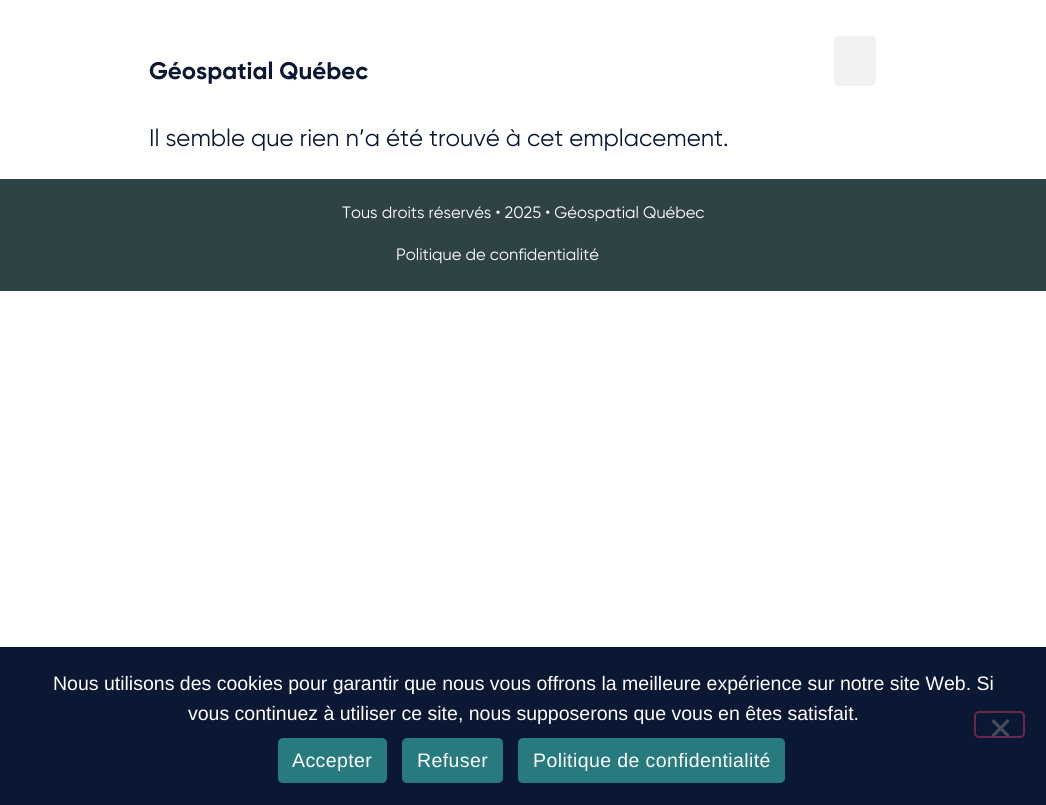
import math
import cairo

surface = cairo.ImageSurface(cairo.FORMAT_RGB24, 1046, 805)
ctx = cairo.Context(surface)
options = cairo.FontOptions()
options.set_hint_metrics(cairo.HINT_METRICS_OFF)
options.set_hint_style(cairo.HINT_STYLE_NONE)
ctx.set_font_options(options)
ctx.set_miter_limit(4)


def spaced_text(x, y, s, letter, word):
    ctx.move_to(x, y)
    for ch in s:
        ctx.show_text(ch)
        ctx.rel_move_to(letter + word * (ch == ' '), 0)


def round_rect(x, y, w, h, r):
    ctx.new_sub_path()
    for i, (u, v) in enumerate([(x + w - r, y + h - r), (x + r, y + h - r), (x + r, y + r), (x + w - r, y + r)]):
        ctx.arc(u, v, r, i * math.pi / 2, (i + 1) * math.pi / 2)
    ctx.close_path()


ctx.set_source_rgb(1, 1, 1)
ctx.paint()
ctx.select_font_face("Gilroy", cairo.FONT_SLANT_NORMAL, cairo.FONT_WEIGHT_BOLD)
ctx.set_font_size(24)
ctx.set_source_rgb(0.043, 0.094, 0.204)
ctx.move_to(149, 79)
ctx.show_text("Géospatial Québec")
ctx.set_source_rgb(0.949, 0.949, 0.949)
round_rect(834, 36, 42, 50, 5)
ctx.fill()
ctx.select_font_face("Gilroy")
ctx.set_source_rgb(0.043, 0.094, 0.204)
ctx.move_to(149, 146)
ctx.show_text("Il semble que rien n’a été trouvé à cet emplacement.")
ctx.set_source_rgb(0.184, 0.259, 0.275)
ctx.rectangle(0, 179, 1046, 112)
ctx.fill()
ctx.set_font_size(16.5)
ctx.set_source_rgb(1, 1, 1)
ctx.move_to(342, 218)
ctx.show_text("Tous droits réservés • 2025 • Géospatial Québec")
ctx.move_to(396, 260)
ctx.show_text("Politique de confidentialité")
ctx.set_source_rgb(0.043, 0.094, 0.204)
ctx.rectangle(0, 647, 1046, 158)
ctx.fill()
ctx.select_font_face("Liberation Sans")
ctx.set_font_size(19.5)
ctx.set_source_rgb(1, 1, 1)
ctx.move_to(53, 690)
ctx.show_text("Nous utilisons des cookies pour garantir que nous vous offrons la meilleure expérience sur notre site Web. Si")
ctx.move_to(188, 720)
ctx.show_text("vous continuez à utiliser ce site, nous supposerons que vous en êtes satisfait.")
round_rect(975, 712, 49, 25, 4)
ctx.set_source_rgb(0.424, 0.149, 0.302)
ctx.stroke()
ctx.set_source_rgb(0.275, 0.298, 0.353)
ctx.new_path()
ctx.move_to(1007.5, 719)
ctx.line_to(1009.5, 721.5)
ctx.line_to(993.5, 737.5)
ctx.line_to(991.5, 735)
ctx.close_path()
ctx.fill()
ctx.new_path()
ctx.move_to(991.5, 721.5)
ctx.line_to(993.5, 719)
ctx.line_to(1009.5, 735)
ctx.line_to(1007.5, 737.5)
ctx.close_path()
ctx.fill()
ctx.set_source_rgb(0.153, 0.478, 0.494)
round_rect(278, 738, 109, 45, 5)
ctx.fill()
ctx.set_source_rgb(1, 1, 1)
spaced_text(292, 767, "Accepter", 0.4, 0)
ctx.set_source_rgb(0.153, 0.478, 0.494)
round_rect(402, 738, 101, 45, 5)
ctx.fill()
ctx.set_source_rgb(1, 1, 1)
spaced_text(417, 767, "Refuser", 0.4, 0)
ctx.set_source_rgb(0.153, 0.478, 0.494)
round_rect(518, 738, 267, 45, 5)
ctx.fill()
ctx.set_source_rgb(1, 1, 1)
spaced_text(533, 767, "Politique de confidentialité", 0.4, 0)
surface.write_to_png("page.png")
